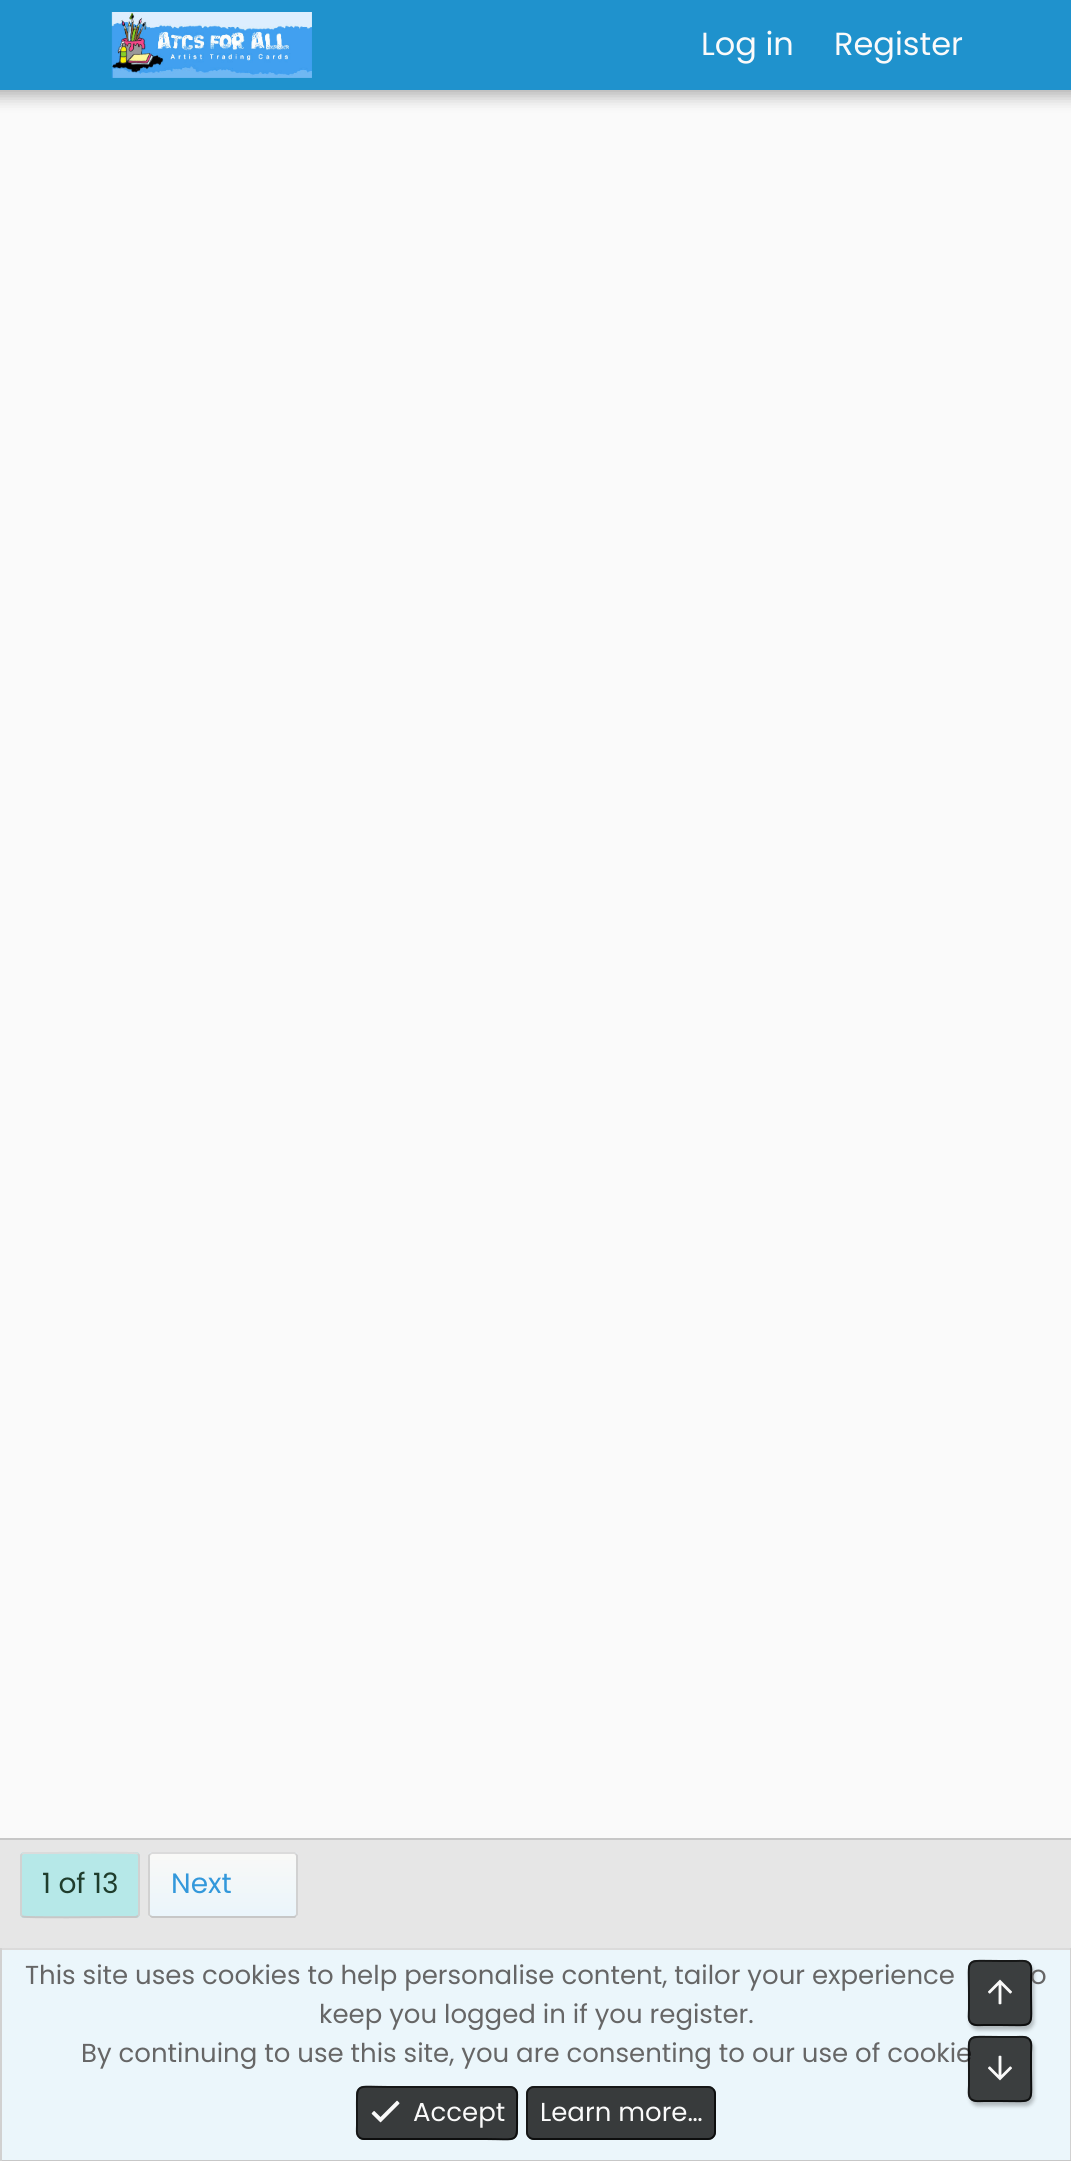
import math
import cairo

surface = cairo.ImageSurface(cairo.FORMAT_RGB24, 1071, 2161)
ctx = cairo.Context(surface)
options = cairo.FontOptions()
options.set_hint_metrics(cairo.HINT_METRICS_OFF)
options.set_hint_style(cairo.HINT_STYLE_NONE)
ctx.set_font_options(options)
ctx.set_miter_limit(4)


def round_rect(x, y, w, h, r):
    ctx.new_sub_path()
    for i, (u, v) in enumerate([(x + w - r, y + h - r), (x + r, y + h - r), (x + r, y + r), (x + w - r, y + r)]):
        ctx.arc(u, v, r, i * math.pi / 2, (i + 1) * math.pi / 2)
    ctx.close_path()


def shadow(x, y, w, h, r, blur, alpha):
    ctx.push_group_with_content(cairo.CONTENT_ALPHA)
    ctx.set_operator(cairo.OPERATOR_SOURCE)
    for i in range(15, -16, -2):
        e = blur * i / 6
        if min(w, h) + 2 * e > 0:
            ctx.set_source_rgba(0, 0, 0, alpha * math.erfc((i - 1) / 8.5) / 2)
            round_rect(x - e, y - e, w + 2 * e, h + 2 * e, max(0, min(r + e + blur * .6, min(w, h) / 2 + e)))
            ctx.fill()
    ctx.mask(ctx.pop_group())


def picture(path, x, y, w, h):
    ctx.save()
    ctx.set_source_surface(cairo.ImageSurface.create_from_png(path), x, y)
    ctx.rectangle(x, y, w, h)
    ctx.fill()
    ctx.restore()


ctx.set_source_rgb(0.902, 0.902, 0.902)
ctx.paint()
ctx.set_source_rgb(0.98, 0.98, 0.98)
ctx.rectangle(0, 90, 1071, 1748)
ctx.fill()
ctx.set_source_rgb(0, 0, 0)
shadow(-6, -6, 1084, 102, 0, 8, 0.3)
ctx.set_source_rgb(0.122, 0.573, 0.804)
ctx.rectangle(0, 0, 1071, 90)
ctx.fill()
picture("img1.png", 111, 12, 201, 66)
ctx.select_font_face("Poppins")
ctx.set_font_size(32)
ctx.set_source_rgb(0.98, 0.98, 0.98)
ctx.move_to(701, 55)
ctx.show_text("Log in")
ctx.move_to(834, 55)
ctx.show_text("Register")
ctx.set_source_rgb(0.78, 0.78, 0.78)
ctx.rectangle(0, 1838, 1071, 2)
ctx.fill()
ctx.set_source_rgb(0.714, 0.91, 0.91)
round_rect(20, 1852, 120, 66, 4)
ctx.fill()
ctx.new_path()
ctx.move_to(22, 1854)
ctx.line_to(24, 1853)
ctx.line_to(42.5, 1853)
ctx.curve_to(52.5, 1853, 135.5, 1852, 137.5, 1853.5)
ctx.line_to(138, 1854)
ctx.set_source_rgb(0.859, 0.859, 0.859)
ctx.stroke()
ctx.new_path()
ctx.move_to(138, 1854)
ctx.line_to(139, 1855.5)
ctx.line_to(139, 1914.5)
ctx.line_to(138, 1916)
ctx.set_source_rgb(0.82, 0.82, 0.82)
ctx.stroke()
ctx.new_path()
ctx.move_to(138, 1916)
ctx.line_to(136, 1917)
ctx.line_to(117.5, 1917)
ctx.curve_to(107.5, 1917, 24.5, 1918, 22.5, 1916.5)
ctx.line_to(22, 1916)
ctx.set_source_rgb(0.78, 0.78, 0.78)
ctx.stroke()
ctx.new_path()
ctx.move_to(22, 1916)
ctx.line_to(21, 1914.5)
ctx.line_to(21, 1855.5)
ctx.line_to(22, 1854)
ctx.set_source_rgb(0.82, 0.82, 0.82)
ctx.stroke()
ctx.set_font_size(28)
ctx.set_source_rgb(0.122, 0.239, 0.176)
ctx.move_to(42, 1893)
ctx.show_text("1 of 13")
ctx.save()
round_rect(148, 1852, 150, 66, 4)
ctx.clip()
gradient = cairo.LinearGradient(223, 1854, 223, 1792)
gradient.add_color_stop_rgba(0, 0.918, 0.961, 0.984, 1)
gradient.add_color_stop_rgba(1, 0.976, 0.976, 0.969, 1)
ctx.set_source(gradient)
ctx.rectangle(148, 1852, 150, 2)
ctx.fill()
gradient = cairo.LinearGradient(223, 1916, 223, 1854)
gradient.add_color_stop_rgba(0, 0.918, 0.961, 0.984, 1)
gradient.add_color_stop_rgba(1, 0.976, 0.976, 0.969, 1)
ctx.set_source(gradient)
ctx.rectangle(148, 1854, 150, 62)
ctx.fill()
gradient = cairo.LinearGradient(223, 1978, 223, 1916)
gradient.add_color_stop_rgba(0, 0.918, 0.961, 0.984, 1)
gradient.add_color_stop_rgba(1, 0.976, 0.976, 0.969, 1)
ctx.set_source(gradient)
ctx.rectangle(148, 1916, 150, 2)
ctx.fill()
ctx.restore()
ctx.new_path()
ctx.move_to(150, 1854)
ctx.line_to(152, 1853)
ctx.line_to(294.5, 1853)
ctx.line_to(296, 1854)
ctx.set_source_rgb(0.859, 0.859, 0.859)
ctx.stroke()
ctx.new_path()
ctx.move_to(296, 1854)
ctx.line_to(297, 1855.5)
ctx.line_to(297, 1914.5)
ctx.line_to(296, 1916)
ctx.set_source_rgb(0.82, 0.82, 0.82)
ctx.stroke()
ctx.new_path()
ctx.move_to(296, 1916)
ctx.line_to(294.5, 1917)
ctx.line_to(175.5, 1917)
ctx.line_to(152, 1917)
ctx.line_to(150, 1916)
ctx.set_source_rgb(0.78, 0.78, 0.78)
ctx.stroke()
ctx.new_path()
ctx.move_to(150, 1916)
ctx.line_to(149, 1914.5)
ctx.line_to(149, 1855.5)
ctx.line_to(150, 1854)
ctx.set_source_rgb(0.82, 0.82, 0.82)
ctx.stroke()
ctx.set_source_rgb(0.2, 0.596, 0.859)
ctx.move_to(171, 1893)
ctx.show_text("Next")
ctx.set_source_rgb(0.918, 0.961, 0.984)
ctx.rectangle(2, 1950, 1068, 210)
ctx.fill()
ctx.save()
ctx.set_fill_rule(cairo.FILL_RULE_EVEN_ODD)
ctx.new_path()
ctx.move_to(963, 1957)
ctx.line_to(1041, 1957)
ctx.line_to(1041, 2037)
ctx.line_to(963, 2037)
ctx.close_path()
ctx.move_to(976, 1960)
ctx.line_to(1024, 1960)
ctx.curve_to(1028.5, 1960, 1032, 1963.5, 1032, 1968)
ctx.line_to(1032, 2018)
ctx.curve_to(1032, 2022.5, 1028.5, 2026, 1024, 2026)
ctx.line_to(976, 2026)
ctx.curve_to(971.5, 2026, 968, 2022.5, 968, 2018)
ctx.line_to(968, 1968)
ctx.curve_to(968, 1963.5, 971.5, 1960, 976, 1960)
ctx.close_path()
ctx.clip()
ctx.set_source_rgb(0, 0, 0)
shadow(970, 1964, 64, 66, 8, 2, 0.25)
ctx.restore()
ctx.set_font_size(26)
ctx.set_source_rgb(0.4, 0.4, 0.4)
ctx.move_to(1030, 1984)
ctx.show_text("o")
ctx.set_source_rgba(0, 0, 0, 0.75)
round_rect(968, 1960, 64, 66, 8)
ctx.fill()
ctx.new_path()
ctx.move_to(1029, 1963)
ctx.curve_to(1032.5, 1966.5, 1031, 1972.5, 1031, 1976.5)
ctx.line_to(1031, 1993)
ctx.curve_to(1031, 2030, 1036.5, 2025, 1000, 2025)
ctx.line_to(984, 2025)
ctx.curve_to(980, 2025, 974.5, 2026, 971, 2023)
ctx.set_source_rgba(0, 0, 0, 0.76)
ctx.stroke()
ctx.new_path()
ctx.move_to(971, 2023)
ctx.curve_to(967.5, 2019.5, 969, 2013.5, 969, 2009.5)
ctx.line_to(969, 1993)
ctx.curve_to(969, 1956, 963.5, 1961, 1000, 1961)
ctx.line_to(1016, 1961)
ctx.curve_to(1020, 1961, 1025.5, 1960, 1029, 1963)
ctx.set_source_rgba(0.051, 0.051, 0.051, 0.76)
ctx.stroke()
picture("img2.png", 988, 1979, 24, 26)
ctx.save()
ctx.set_fill_rule(cairo.FILL_RULE_EVEN_ODD)
ctx.new_path()
ctx.move_to(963, 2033)
ctx.line_to(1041, 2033)
ctx.line_to(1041, 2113)
ctx.line_to(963, 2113)
ctx.close_path()
ctx.move_to(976, 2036)
ctx.line_to(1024, 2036)
ctx.curve_to(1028.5, 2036, 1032, 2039.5, 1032, 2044)
ctx.line_to(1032, 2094)
ctx.curve_to(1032, 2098.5, 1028.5, 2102, 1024, 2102)
ctx.line_to(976, 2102)
ctx.curve_to(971.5, 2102, 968, 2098.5, 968, 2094)
ctx.line_to(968, 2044)
ctx.curve_to(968, 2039.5, 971.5, 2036, 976, 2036)
ctx.close_path()
ctx.clip()
ctx.set_source_rgb(0, 0, 0)
shadow(970, 2040, 64, 66, 8, 2, 0.25)
ctx.restore()
ctx.set_source_rgb(0.4, 0.4, 0.4)
ctx.move_to(81, 2062)
ctx.show_text("By continuing to use this site, you are consenting to our use of cookie")
ctx.set_source_rgba(0, 0, 0, 0.75)
round_rect(968, 2036, 64, 66, 8)
ctx.fill()
ctx.new_path()
ctx.move_to(1029, 2039)
ctx.curve_to(1032.5, 2042.5, 1031, 2048.5, 1031, 2052.5)
ctx.line_to(1031, 2069)
ctx.curve_to(1031, 2106, 1036.5, 2101, 1000, 2101)
ctx.line_to(984, 2101)
ctx.curve_to(980, 2101, 974.5, 2102, 971, 2099)
ctx.set_source_rgba(0, 0, 0, 0.76)
ctx.stroke()
ctx.new_path()
ctx.move_to(971, 2099)
ctx.curve_to(967.5, 2095.5, 969, 2089.5, 969, 2085.5)
ctx.line_to(969, 2069)
ctx.curve_to(969, 2032, 963.5, 2037, 1000, 2037)
ctx.line_to(1016, 2037)
ctx.curve_to(1020, 2037, 1025.5, 2036, 1029, 2039)
ctx.set_source_rgba(0.051, 0.051, 0.051, 0.76)
ctx.stroke()
picture("img3.png", 988, 2055, 24, 26)
ctx.set_source_rgb(0.859, 0.859, 0.859)
ctx.rectangle(0, 1948, 1071, 2)
ctx.fill()
ctx.set_source_rgb(0.82, 0.82, 0.82)
ctx.rectangle(1070, 1948, 1, 213)
ctx.fill()
ctx.set_source_rgb(0.78, 0.78, 0.78)
ctx.rectangle(0, 2160, 1071, 1)
ctx.fill()
ctx.set_source_rgb(0.82, 0.82, 0.82)
ctx.rectangle(0, 1948, 2, 213)
ctx.fill()
ctx.set_source_rgb(0.4, 0.4, 0.4)
ctx.move_to(25, 1984)
ctx.show_text("This site uses cookies to help personalise content, tailor your experience")
ctx.move_to(319, 2023)
ctx.show_text("keep you logged in if you register.")
ctx.set_source_rgb(0.22, 0.231, 0.235)
round_rect(356, 2086, 162, 54, 8)
ctx.fill()
ctx.new_path()
ctx.move_to(515, 2089)
ctx.curve_to(518, 2092, 517, 2096.5, 517, 2100.5)
ctx.line_to(517, 2113)
ctx.curve_to(517, 2144.5, 520, 2139, 485.5, 2139)
ctx.line_to(364, 2139)
ctx.curve_to(362, 2139, 360.5, 2138.5, 359, 2137)
ctx.set_source_rgba(0, 0, 0, 0.76)
ctx.stroke()
ctx.new_path()
ctx.move_to(359, 2137)
ctx.curve_to(356, 2134, 357, 2129.5, 357, 2125.5)
ctx.line_to(357, 2113)
ctx.curve_to(357, 2081.5, 354, 2087, 388.5, 2087)
ctx.line_to(510, 2087)
ctx.curve_to(512, 2087, 513.5, 2087.5, 515, 2089)
ctx.set_source_rgba(0.051, 0.051, 0.051, 0.76)
ctx.stroke()
picture("img4.png", 371, 2100, 29, 23)
ctx.set_source_rgb(0.98, 0.98, 0.98)
ctx.move_to(413, 2121)
ctx.show_text("Accept")
ctx.set_source_rgb(0.22, 0.231, 0.235)
round_rect(526, 2086, 190, 54, 8)
ctx.fill()
ctx.new_path()
ctx.move_to(713, 2089)
ctx.curve_to(714.5, 2090.5, 715, 2092, 715, 2094)
ctx.line_to(715, 2132)
ctx.curve_to(715, 2134, 714.5, 2135.5, 713, 2137)
ctx.curve_to(711.5, 2138.5, 710, 2139, 708, 2139)
ctx.line_to(534, 2139)
ctx.curve_to(532, 2139, 530.5, 2138.5, 529, 2137)
ctx.set_source_rgba(0, 0, 0, 0.76)
ctx.stroke()
ctx.new_path()
ctx.move_to(529, 2137)
ctx.curve_to(527.5, 2135.5, 527, 2134, 527, 2132)
ctx.line_to(527, 2094)
ctx.curve_to(527, 2092, 527.5, 2090.5, 529, 2089)
ctx.curve_to(530.5, 2087.5, 532, 2087, 534, 2087)
ctx.line_to(708, 2087)
ctx.curve_to(710, 2087, 711.5, 2087.5, 713, 2089)
ctx.set_source_rgba(0.051, 0.051, 0.051, 0.76)
ctx.stroke()
ctx.set_source_rgb(0.98, 0.98, 0.98)
ctx.move_to(540, 2121)
ctx.show_text("Learn more…")
surface.write_to_png("page.png")
